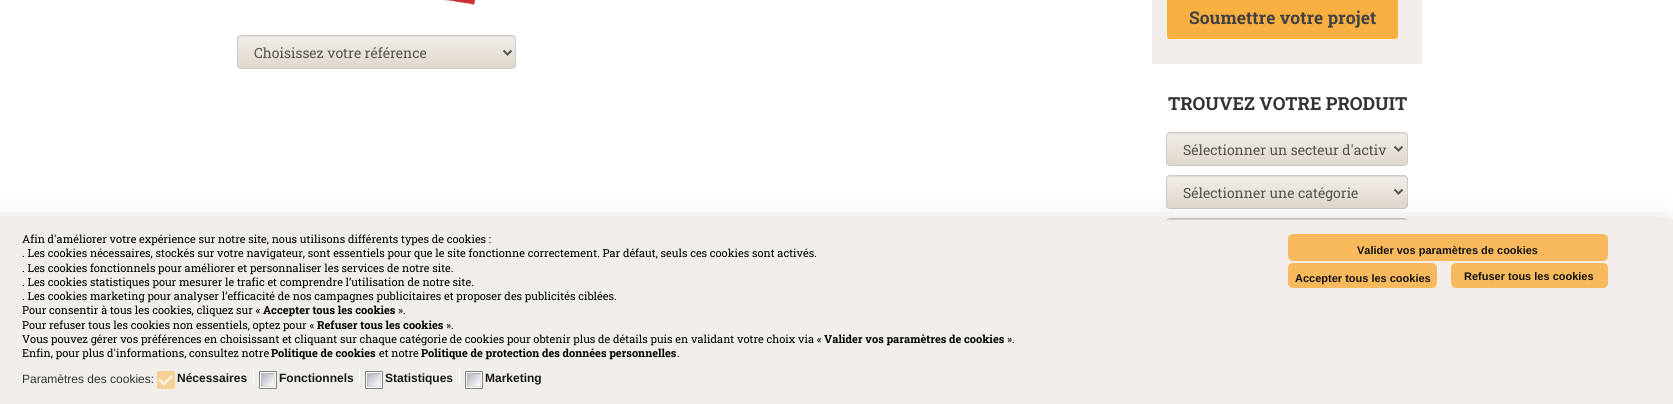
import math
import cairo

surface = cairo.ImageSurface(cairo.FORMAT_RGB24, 1673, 404)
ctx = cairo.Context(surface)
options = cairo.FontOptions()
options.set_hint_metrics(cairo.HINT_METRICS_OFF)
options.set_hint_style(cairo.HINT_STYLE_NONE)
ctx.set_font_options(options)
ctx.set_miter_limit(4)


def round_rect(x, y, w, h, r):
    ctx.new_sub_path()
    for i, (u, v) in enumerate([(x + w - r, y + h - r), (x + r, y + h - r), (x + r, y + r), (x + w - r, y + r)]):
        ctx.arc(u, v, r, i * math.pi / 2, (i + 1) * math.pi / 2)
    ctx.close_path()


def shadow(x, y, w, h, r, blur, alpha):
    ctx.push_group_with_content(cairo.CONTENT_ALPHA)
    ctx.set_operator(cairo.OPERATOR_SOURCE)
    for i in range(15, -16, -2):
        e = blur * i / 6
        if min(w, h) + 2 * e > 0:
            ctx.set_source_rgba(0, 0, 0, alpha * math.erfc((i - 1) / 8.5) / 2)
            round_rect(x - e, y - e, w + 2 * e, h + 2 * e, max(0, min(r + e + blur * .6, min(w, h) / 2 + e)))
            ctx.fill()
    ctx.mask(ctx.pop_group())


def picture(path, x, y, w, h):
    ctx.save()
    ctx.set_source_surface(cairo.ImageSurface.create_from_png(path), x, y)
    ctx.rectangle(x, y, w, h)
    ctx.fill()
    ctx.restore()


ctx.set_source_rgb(1, 1, 1)
ctx.paint()
picture("img1.png", 237, 0, 279, 16)
ctx.save()
round_rect(237, 35, 279, 34, 4)
ctx.clip()
gradient = cairo.LinearGradient(377, 36, 377, 68)
gradient.add_color_stop_rgba(0, 0.945, 0.929, 0.91, 1)
gradient.add_color_stop_rgba(1, 0.875, 0.847, 0.804, 1)
ctx.set_source(gradient)
ctx.rectangle(237, 36, 279, 32)
ctx.fill()
ctx.restore()
ctx.set_source_rgb(0.875, 0.859, 0.843)
ctx.new_path()
ctx.move_to(241, 37)
ctx.line_to(512, 37)
ctx.curve_to(514, 37, 515, 38, 515, 40)
ctx.line_to(515, 39)
ctx.curve_to(515, 37, 514, 36, 512, 36)
ctx.line_to(241, 36)
ctx.curve_to(239, 36, 238, 37, 238, 39)
ctx.line_to(238, 40)
ctx.curve_to(238, 38, 239, 37, 241, 37)
ctx.close_path()
ctx.fill()
round_rect(237.5, 35.5, 278, 33, 3.5)
ctx.set_source_rgb(0.8, 0.8, 0.8)
ctx.set_line_width(1)
ctx.stroke()
ctx.new_path()
ctx.move_to(503.5, 50.5)
ctx.line_to(507.5, 54.5)
ctx.line_to(511.5, 50.5)
ctx.set_source_rgb(0.333, 0.333, 0.333)
ctx.set_line_width(2)
ctx.stroke()
ctx.select_font_face("Roboto Slab")
ctx.set_font_size(14)
ctx.move_to(254, 58)
ctx.show_text("Choisissez votre référence")
ctx.set_source_rgb(0.945, 0.929, 0.91)
ctx.rectangle(1152, 0, 270, 64)
ctx.fill()
ctx.set_source_rgb(0.98, 0.69, 0.255)
round_rect(1167, -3, 231, 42, 3)
ctx.fill()
ctx.select_font_face("Roboto Slab", cairo.FONT_SLANT_NORMAL, cairo.FONT_WEIGHT_BOLD)
ctx.set_font_size(17.5)
ctx.set_source_rgb(0.255, 0.251, 0.259)
ctx.move_to(1189, 24)
ctx.show_text("Soumettre votre projet")
ctx.set_font_size(18)
ctx.set_source_rgb(0.2, 0.2, 0.2)
ctx.move_to(1168, 110)
ctx.show_text("TROUVEZ VOTRE PRODUIT")
ctx.save()
round_rect(1166, 132, 242, 34, 4)
ctx.clip()
gradient = cairo.LinearGradient(1287, 133, 1287, 165)
gradient.add_color_stop_rgba(0, 0.945, 0.929, 0.91, 1)
gradient.add_color_stop_rgba(1, 0.875, 0.847, 0.804, 1)
ctx.set_source(gradient)
ctx.rectangle(1166, 133, 242, 32)
ctx.fill()
ctx.restore()
ctx.set_source_rgb(0.875, 0.859, 0.843)
ctx.new_path()
ctx.move_to(1170, 134)
ctx.line_to(1405, 134)
ctx.line_to(1407, 135)
ctx.line_to(1407, 137)
ctx.curve_to(1407, 135, 1406, 133, 1404, 133)
ctx.line_to(1170, 133)
ctx.curve_to(1168, 133, 1167, 135, 1167, 137)
ctx.curve_to(1167, 135, 1168, 134, 1170, 134)
ctx.close_path()
ctx.fill()
round_rect(1166.5, 132.5, 241, 33, 3.5)
ctx.set_source_rgb(0.8, 0.8, 0.8)
ctx.set_line_width(1)
ctx.stroke()
ctx.new_path()
ctx.move_to(1394.5, 146.5)
ctx.line_to(1398.5, 150.5)
ctx.line_to(1402.5, 146.5)
ctx.set_source_rgb(0.333, 0.333, 0.333)
ctx.set_line_width(2)
ctx.stroke()
ctx.select_font_face("Roboto Slab")
ctx.set_font_size(14)
ctx.move_to(1183, 155)
ctx.show_text("Sélectionner un secteur d'activ")
ctx.save()
round_rect(1166, 175, 242, 34, 4)
ctx.clip()
gradient = cairo.LinearGradient(1287, 176, 1287, 208)
gradient.add_color_stop_rgba(0, 0.945, 0.929, 0.91, 1)
gradient.add_color_stop_rgba(1, 0.875, 0.847, 0.804, 1)
ctx.set_source(gradient)
ctx.rectangle(1166, 176, 242, 32)
ctx.fill()
ctx.restore()
ctx.set_source_rgb(0.875, 0.859, 0.843)
ctx.new_path()
ctx.move_to(1170, 177)
ctx.line_to(1405, 177)
ctx.line_to(1407, 178)
ctx.line_to(1407, 180)
ctx.curve_to(1407, 178, 1406, 176, 1404, 176)
ctx.line_to(1170, 176)
ctx.curve_to(1168, 176, 1167, 178, 1167, 180)
ctx.curve_to(1167, 178, 1168, 177, 1170, 177)
ctx.close_path()
ctx.fill()
round_rect(1166.5, 175.5, 241, 33, 3.5)
ctx.set_source_rgb(0.8, 0.8, 0.8)
ctx.set_line_width(1)
ctx.stroke()
ctx.new_path()
ctx.move_to(1394.5, 189.5)
ctx.line_to(1398.5, 193.5)
ctx.line_to(1402.5, 189.5)
ctx.set_source_rgb(0.333, 0.333, 0.333)
ctx.set_line_width(2)
ctx.stroke()
ctx.move_to(1183, 198)
ctx.show_text("Sélectionner une catégorie")
ctx.set_source_rgb(0.875, 0.859, 0.843)
ctx.new_path()
ctx.move_to(1170, 220)
ctx.line_to(1405, 220)
ctx.line_to(1407, 221)
ctx.line_to(1407, 223)
ctx.curve_to(1407, 221, 1406, 219, 1404, 219)
ctx.line_to(1170, 219)
ctx.curve_to(1168, 219, 1167, 221, 1167, 223)
ctx.curve_to(1167, 221, 1168, 220, 1170, 220)
ctx.close_path()
ctx.fill()
round_rect(1166.5, 218.5, 241, 33, 3.5)
ctx.set_source_rgb(0.8, 0.8, 0.8)
ctx.set_line_width(1)
ctx.stroke()
ctx.set_source_rgb(0, 0, 0)
shadow(-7, 223, 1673, 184, 0, 13, 0.19)
ctx.set_source_rgb(0.945, 0.929, 0.91)
ctx.rectangle(0, 220, 1673, 184)
ctx.fill()
ctx.set_font_size(11)
ctx.set_source_rgb(0, 0, 0)
ctx.move_to(22, 243)
ctx.show_text("Afin d'améliorer votre expérience sur notre site, nous utilisons différents types de cookies :")
ctx.move_to(22, 257)
ctx.show_text(". Les cookies nécessaires, stockés sur votre navigateur, sont essentiels pour que le site fonctionne correctement. Par défaut, seuls ces cookies sont activés.")
ctx.move_to(22, 272)
ctx.show_text(". Les cookies fonctionnels pour améliorer et personnaliser les services de notre site.")
ctx.move_to(22, 286)
ctx.show_text(". Les cookies statistiques pour mesurer le trafic et comprendre l’utilisation de notre site.")
ctx.move_to(22, 300)
ctx.show_text(". Les cookies marketing pour analyser l’efficacité de nos campagnes publicitaires et proposer des publicités ciblées.")
ctx.move_to(22, 314)
ctx.show_text("Pour consentir à tous les cookies, cliquez sur «")
ctx.select_font_face("Roboto Slab", cairo.FONT_SLANT_NORMAL, cairo.FONT_WEIGHT_BOLD)
ctx.move_to(263, 314)
ctx.show_text("Accepter tous les cookies")
ctx.select_font_face("Roboto Slab")
ctx.move_to(398, 314)
ctx.show_text("».")
ctx.move_to(22, 329)
ctx.show_text("Pour refuser tous les cookies non essentiels, optez pour «")
ctx.select_font_face("Roboto Slab", cairo.FONT_SLANT_NORMAL, cairo.FONT_WEIGHT_BOLD)
ctx.move_to(317, 329)
ctx.show_text("Refuser tous les cookies")
ctx.select_font_face("Roboto Slab")
ctx.move_to(446, 329)
ctx.show_text("».")
ctx.move_to(22, 343)
ctx.show_text("Vous pouvez gérer vos préférences en choisissant et cliquant sur chaque catégorie de cookies pour obtenir plus de détails puis en validant votre choix via «")
ctx.select_font_face("Roboto Slab", cairo.FONT_SLANT_NORMAL, cairo.FONT_WEIGHT_BOLD)
ctx.move_to(824, 343)
ctx.show_text("Valider vos paramètres de cookies")
ctx.select_font_face("Roboto Slab")
ctx.move_to(1007, 343)
ctx.show_text("».")
ctx.move_to(22, 357)
ctx.show_text("Enfin, pour plus d'informations, consultez notre")
ctx.select_font_face("Roboto Slab", cairo.FONT_SLANT_NORMAL, cairo.FONT_WEIGHT_BOLD)
ctx.move_to(271, 357)
ctx.show_text("Politique de cookies")
ctx.select_font_face("Roboto Slab")
ctx.move_to(379, 357)
ctx.show_text("et notre")
ctx.select_font_face("Roboto Slab", cairo.FONT_SLANT_NORMAL, cairo.FONT_WEIGHT_BOLD)
ctx.move_to(421, 357)
ctx.show_text("Politique de protection des données personnelles")
ctx.select_font_face("Roboto Slab")
ctx.move_to(677, 357)
ctx.show_text(".")
ctx.set_source_rgb(0.973, 0.729, 0.369)
round_rect(1288, 234, 320, 27, 5)
ctx.fill()
ctx.select_font_face("Liberation Sans", cairo.FONT_SLANT_NORMAL, cairo.FONT_WEIGHT_BOLD)
ctx.set_source_rgb(0.071, 0.071, 0.075)
ctx.move_to(1357, 254)
ctx.show_text("Valider vos paramètres de cookies")
ctx.set_source_rgb(0.973, 0.729, 0.369)
round_rect(1288, 263, 149, 25, 5)
ctx.fill()
ctx.set_source_rgb(0.071, 0.071, 0.075)
ctx.move_to(1295, 282)
ctx.show_text("Accepter tous les cookies")
ctx.set_source_rgb(0.973, 0.729, 0.369)
round_rect(1451, 263, 157, 25, 5)
ctx.fill()
ctx.set_source_rgb(0.071, 0.071, 0.075)
ctx.move_to(1464, 280)
ctx.show_text("Refuser tous les cookies")
ctx.select_font_face("Liberation Sans")
ctx.set_font_size(12)
ctx.set_source_rgb(0.2, 0.2, 0.2)
ctx.move_to(22, 383)
ctx.show_text("Paramètres des cookies:")
ctx.set_source_rgb(0.969, 0.812, 0.58)
round_rect(157.5, 371.5, 17, 17, 0.5)
ctx.fill_preserve()
ctx.stroke()
ctx.set_source_rgb(0.973, 0.965, 0.957)
ctx.new_path()
ctx.move_to(171.5, 375)
ctx.line_to(173, 376.5)
ctx.line_to(164, 385.5)
ctx.line_to(162.5, 384)
ctx.close_path()
ctx.fill()
ctx.new_path()
ctx.move_to(159.5, 378.5)
ctx.line_to(165.5, 384)
ctx.line_to(164, 385.5)
ctx.line_to(158, 380)
ctx.close_path()
ctx.fill()
ctx.set_source_rgb(0.996, 0.992, 0.992)
ctx.rectangle(253, 369, 1, 15)
ctx.fill()
ctx.select_font_face("Liberation Sans", cairo.FONT_SLANT_NORMAL, cairo.FONT_WEIGHT_BOLD)
ctx.set_source_rgb(0.094, 0.094, 0.09)
ctx.move_to(177, 382)
ctx.show_text("Nécessaires")
ctx.set_source_rgb(1, 1, 1)
round_rect(259.5, 371.5, 17, 17, 0.5)
ctx.fill_preserve()
ctx.set_source_rgb(0.502, 0.502, 0.502)
ctx.stroke()
gradient = cairo.LinearGradient(262, 374, 274, 386)
gradient.add_color_stop_rgba(0, 0.694, 0.714, 0.745, 1)
gradient.add_color_stop_rgba(1, 1, 1, 1, 1)
ctx.set_source(gradient)
ctx.rectangle(262, 374, 12, 12)
ctx.fill()
ctx.new_path()
ctx.move_to(274.5, 373.5)
ctx.line_to(274.5, 380)
ctx.curve_to(274.5, 388.5, 276.5, 386.5, 268, 386.5)
ctx.line_to(261.5, 386.5)
ctx.set_source_rgb(0.863, 0.867, 0.871)
ctx.stroke()
ctx.new_path()
ctx.move_to(261.5, 386.5)
ctx.line_to(261.5, 380)
ctx.curve_to(261.5, 371.5, 259.5, 373.5, 268, 373.5)
ctx.line_to(274.5, 373.5)
ctx.set_source_rgb(0.702, 0.702, 0.702)
ctx.stroke()
ctx.set_source_rgb(0.996, 0.992, 0.992)
ctx.rectangle(359, 369, 1, 15)
ctx.fill()
ctx.set_source_rgb(0.094, 0.094, 0.09)
ctx.move_to(279, 382)
ctx.show_text("Fonctionnels")
ctx.set_source_rgb(1, 1, 1)
round_rect(365.5, 371.5, 17, 17, 0.5)
ctx.fill_preserve()
ctx.set_source_rgb(0.502, 0.502, 0.502)
ctx.stroke()
gradient = cairo.LinearGradient(368, 374, 380, 386)
gradient.add_color_stop_rgba(0, 0.694, 0.714, 0.745, 1)
gradient.add_color_stop_rgba(1, 1, 1, 1, 1)
ctx.set_source(gradient)
ctx.rectangle(368, 374, 12, 12)
ctx.fill()
ctx.new_path()
ctx.move_to(380.5, 373.5)
ctx.line_to(380.5, 380)
ctx.curve_to(380.5, 388.5, 382.5, 386.5, 374, 386.5)
ctx.line_to(367.5, 386.5)
ctx.set_source_rgb(0.863, 0.867, 0.871)
ctx.stroke()
ctx.new_path()
ctx.move_to(367.5, 386.5)
ctx.line_to(367.5, 380)
ctx.curve_to(367.5, 371.5, 365.5, 373.5, 374, 373.5)
ctx.line_to(380.5, 373.5)
ctx.set_source_rgb(0.702, 0.702, 0.702)
ctx.stroke()
ctx.set_source_rgb(0.996, 0.992, 0.992)
ctx.rectangle(459, 369, 1, 15)
ctx.fill()
ctx.set_source_rgb(0.094, 0.094, 0.09)
ctx.move_to(385, 382)
ctx.show_text("Statistiques")
ctx.set_source_rgb(1, 1, 1)
round_rect(465.5, 371.5, 17, 17, 0.5)
ctx.fill_preserve()
ctx.set_source_rgb(0.502, 0.502, 0.502)
ctx.stroke()
gradient = cairo.LinearGradient(468, 374, 480, 386)
gradient.add_color_stop_rgba(0, 0.694, 0.714, 0.745, 1)
gradient.add_color_stop_rgba(1, 1, 1, 1, 1)
ctx.set_source(gradient)
ctx.rectangle(468, 374, 12, 12)
ctx.fill()
ctx.new_path()
ctx.move_to(480.5, 373.5)
ctx.line_to(480.5, 380)
ctx.curve_to(480.5, 388.5, 482.5, 386.5, 474, 386.5)
ctx.line_to(467.5, 386.5)
ctx.set_source_rgb(0.863, 0.867, 0.871)
ctx.stroke()
ctx.new_path()
ctx.move_to(467.5, 386.5)
ctx.line_to(467.5, 380)
ctx.curve_to(467.5, 371.5, 465.5, 373.5, 474, 373.5)
ctx.line_to(480.5, 373.5)
ctx.set_source_rgb(0.702, 0.702, 0.702)
ctx.stroke()
ctx.set_source_rgb(0.094, 0.094, 0.09)
ctx.move_to(485, 382)
ctx.show_text("Marketing")
surface.write_to_png("page.png")
